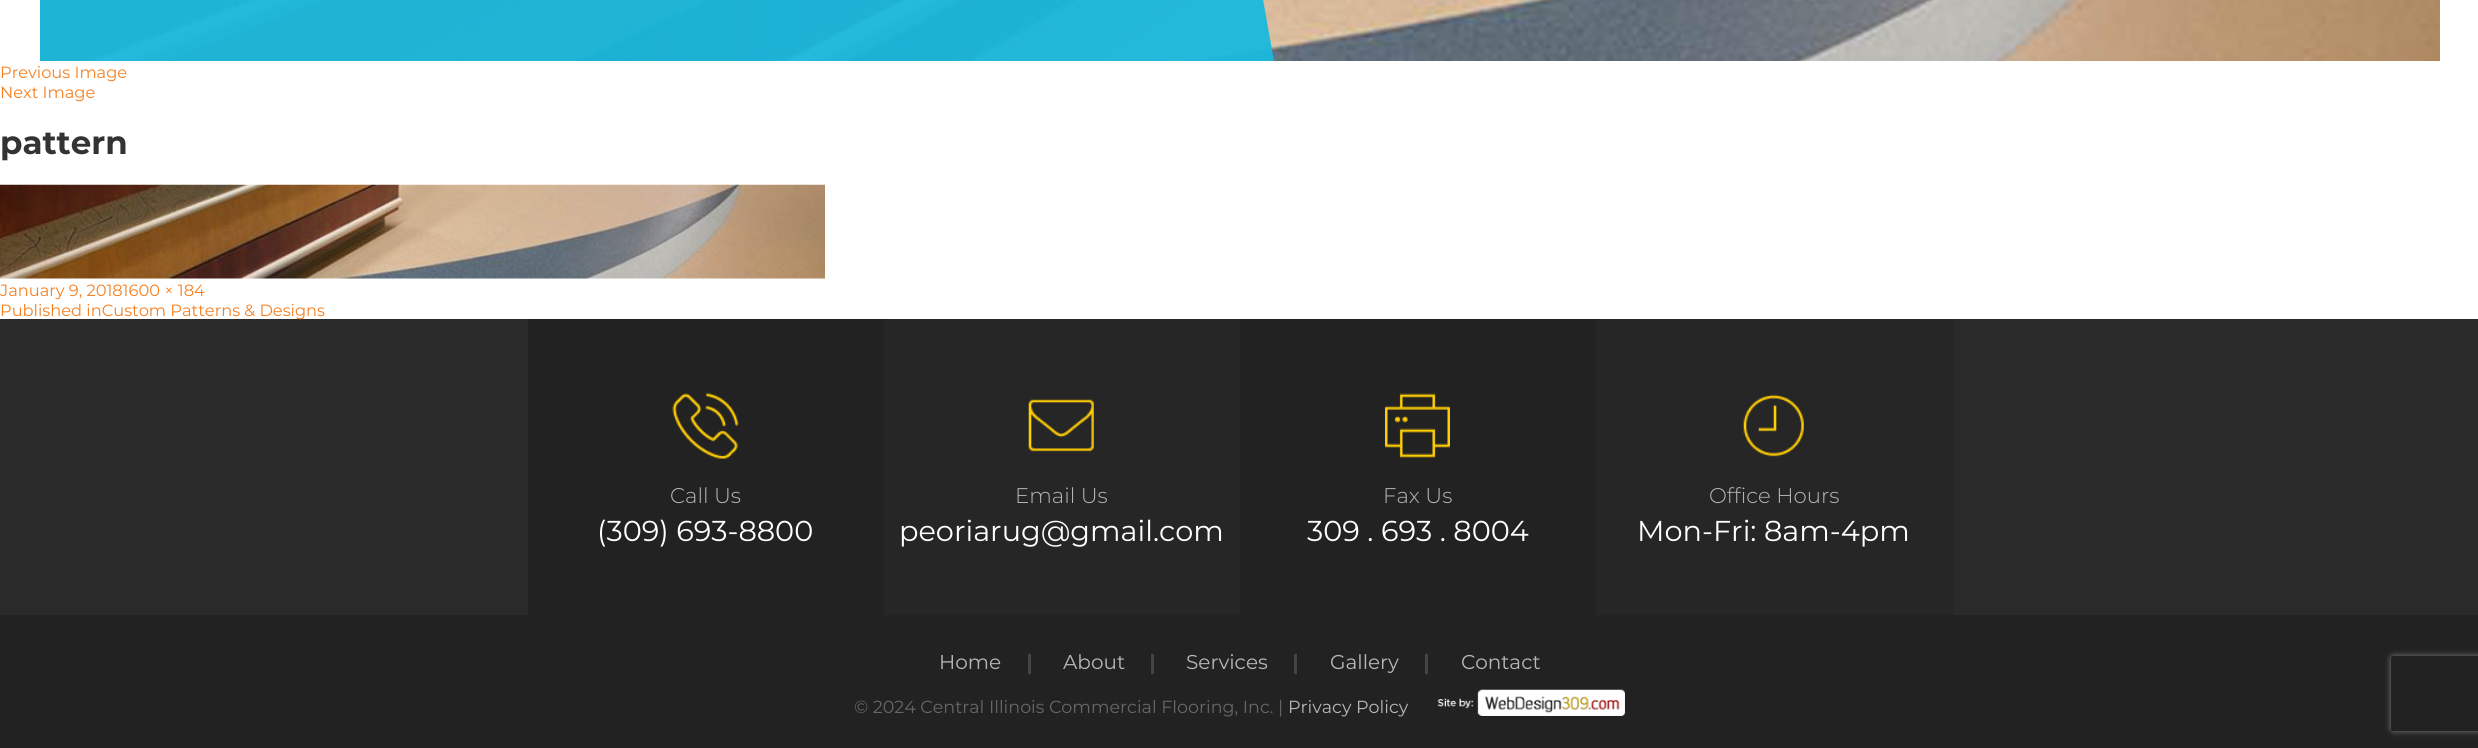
import math
import cairo

surface = cairo.ImageSurface(cairo.FORMAT_RGB24, 2478, 748)
ctx = cairo.Context(surface)
options = cairo.FontOptions()
options.set_hint_metrics(cairo.HINT_METRICS_OFF)
options.set_hint_style(cairo.HINT_STYLE_NONE)
ctx.set_font_options(options)
ctx.set_miter_limit(4)


def round_rect(x, y, w, h, r):
    ctx.new_sub_path()
    for i, (u, v) in enumerate([(x + w - r, y + h - r), (x + r, y + h - r), (x + r, y + r), (x + w - r, y + r)]):
        ctx.arc(u, v, r, i * math.pi / 2, (i + 1) * math.pi / 2)
    ctx.close_path()


def shadow(x, y, w, h, r, blur, alpha):
    ctx.push_group_with_content(cairo.CONTENT_ALPHA)
    ctx.set_operator(cairo.OPERATOR_SOURCE)
    for i in range(15, -16, -2):
        e = blur * i / 6
        if min(w, h) + 2 * e > 0:
            ctx.set_source_rgba(0, 0, 0, alpha * math.erfc((i - 1) / 8.5) / 2)
            round_rect(x - e, y - e, w + 2 * e, h + 2 * e, max(0, min(r + e + blur * .6, min(w, h) / 2 + e)))
            ctx.fill()
    ctx.mask(ctx.pop_group())


def picture(path, x, y, w, h):
    ctx.save()
    ctx.set_source_surface(cairo.ImageSurface.create_from_png(path), x, y)
    ctx.rectangle(x, y, w, h)
    ctx.fill()
    ctx.restore()


ctx.set_source_rgb(1, 1, 1)
ctx.paint()
picture("img1.png", 40, 0, 2400, 61)
ctx.save()
ctx.rectangle(40, 0, 2400, 61)
ctx.clip()
ctx.set_source_rgba(0.106, 0.725, 0.871, 0.95)
ctx.new_path()
ctx.move_to(-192, -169)
ctx.line_to(1233, -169)
ctx.line_to(1274, 61)
ctx.line_to(-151, 61)
ctx.close_path()
ctx.fill()
ctx.restore()
ctx.select_font_face("Montserrat")
ctx.set_font_size(16.25)
ctx.set_source_rgb(0.961, 0.502, 0.125)
ctx.move_to(0, 78)
ctx.show_text("Previous Image")
ctx.move_to(0, 98)
ctx.show_text("Next Image")
ctx.select_font_face("Montserrat", cairo.FONT_SLANT_NORMAL, cairo.FONT_WEIGHT_BOLD)
ctx.set_font_size(32.5)
ctx.set_source_rgb(0.2, 0.2, 0.2)
ctx.move_to(0, 154)
ctx.show_text("pattern")
picture("img2.png", 0, 184, 825, 95)
ctx.select_font_face("Montserrat")
ctx.set_font_size(16.25)
ctx.set_source_rgb(0.961, 0.502, 0.125)
ctx.move_to(0, 296)
ctx.show_text("January 9, 20181600 × 184")
ctx.set_source_rgb(0.165, 0.165, 0.165)
ctx.rectangle(0, 319, 2478, 296)
ctx.fill()
ctx.set_source_rgb(0.961, 0.502, 0.125)
ctx.move_to(0, 316)
ctx.show_text("Published inCustom Patterns & Designs")
ctx.set_source_rgb(0.133, 0.133, 0.133)
ctx.rectangle(528, 319, 356, 296)
ctx.fill()
picture("img3.png", 672, 393, 67, 66)
ctx.select_font_face("Montserrat Light")
ctx.set_font_size(21.25)
ctx.set_source_rgb(0.722, 0.718, 0.718)
ctx.move_to(670, 503)
ctx.show_text("Call Us")
ctx.select_font_face("Montserrat")
ctx.set_font_size(28.75)
ctx.set_source_rgb(1, 1, 1)
ctx.move_to(597, 541)
ctx.show_text("(309) 693-8800")
ctx.set_source_rgb(0.149, 0.149, 0.149)
ctx.rectangle(884, 319, 356, 296)
ctx.fill()
picture("img4.png", 1028, 399, 66, 53)
ctx.select_font_face("Montserrat Light")
ctx.set_font_size(21.25)
ctx.set_source_rgb(0.722, 0.718, 0.718)
ctx.move_to(1015, 503)
ctx.show_text("Email Us")
ctx.select_font_face("Montserrat")
ctx.set_font_size(28.75)
ctx.set_source_rgb(1, 1, 1)
ctx.move_to(899, 541)
ctx.show_text("peoriarug@gmail.com")
ctx.set_source_rgb(0.133, 0.133, 0.133)
ctx.rectangle(1240, 319, 356, 296)
ctx.fill()
picture("img5.png", 1385, 393, 65, 65)
ctx.select_font_face("Montserrat Light")
ctx.set_font_size(21.25)
ctx.set_source_rgb(0.722, 0.718, 0.718)
ctx.move_to(1383, 503)
ctx.show_text("Fax Us")
ctx.select_font_face("Montserrat")
ctx.set_font_size(28.75)
ctx.set_source_rgb(1, 1, 1)
ctx.move_to(1307, 541)
ctx.show_text("309 . 693 . 8004")
ctx.set_source_rgb(0.149, 0.149, 0.149)
ctx.rectangle(1596, 319, 357, 296)
ctx.fill()
picture("img6.png", 1743, 394, 61, 63)
ctx.select_font_face("Montserrat Light")
ctx.set_font_size(21.25)
ctx.set_source_rgb(0.722, 0.718, 0.718)
ctx.move_to(1709, 503)
ctx.show_text("Office Hours")
ctx.select_font_face("Montserrat")
ctx.set_font_size(28.75)
ctx.set_source_rgb(1, 1, 1)
ctx.move_to(1637, 541)
ctx.show_text("Mon-Fri: 8am-4pm")
ctx.set_source_rgb(0.133, 0.133, 0.133)
ctx.rectangle(0, 615, 2478, 133)
ctx.fill()
ctx.set_font_size(20)
ctx.set_source_rgb(0.722, 0.718, 0.718)
ctx.move_to(939, 669)
ctx.show_text("Home")
ctx.set_source_rgb(0.267, 0.267, 0.267)
ctx.rectangle(1028, 654, 3, 20)
ctx.fill()
ctx.set_source_rgb(0.722, 0.718, 0.718)
ctx.move_to(1063, 669)
ctx.show_text("About")
ctx.set_source_rgb(0.267, 0.267, 0.267)
ctx.rectangle(1151, 654, 3, 20)
ctx.fill()
ctx.set_source_rgb(0.722, 0.718, 0.718)
ctx.move_to(1186, 669)
ctx.show_text("Services")
ctx.set_source_rgb(0.267, 0.267, 0.267)
ctx.rectangle(1294, 654, 3, 20)
ctx.fill()
ctx.set_source_rgb(0.722, 0.718, 0.718)
ctx.move_to(1330, 669)
ctx.show_text("Gallery")
ctx.set_source_rgb(0.267, 0.267, 0.267)
ctx.rectangle(1425, 654, 3, 20)
ctx.fill()
ctx.set_source_rgb(0.722, 0.718, 0.718)
ctx.move_to(1461, 669)
ctx.show_text("Contact")
ctx.set_font_size(17.5)
ctx.set_source_rgb(0.4, 0.4, 0.4)
ctx.move_to(854, 713)
ctx.show_text("© 2024 Central Illinois Commercial Flooring, Inc. |")
ctx.set_source_rgb(0.722, 0.718, 0.718)
ctx.move_to(1288, 713)
ctx.show_text("Privacy Policy")
picture("img7.png", 1437, 689, 188, 27)
ctx.save()
ctx.set_fill_rule(cairo.FILL_RULE_EVEN_ODD)
ctx.new_path()
ctx.move_to(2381, 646)
ctx.line_to(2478, 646)
ctx.line_to(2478, 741)
ctx.line_to(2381, 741)
ctx.close_path()
ctx.move_to(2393.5, 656)
ctx.line_to(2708.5, 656)
ctx.curve_to(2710, 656, 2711, 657, 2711, 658.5)
ctx.line_to(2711, 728.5)
ctx.curve_to(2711, 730, 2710, 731, 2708.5, 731)
ctx.line_to(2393.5, 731)
ctx.curve_to(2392, 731, 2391, 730, 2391, 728.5)
ctx.line_to(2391, 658.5)
ctx.curve_to(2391, 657, 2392, 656, 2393.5, 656)
ctx.close_path()
ctx.clip()
ctx.set_source_rgb(0.502, 0.502, 0.502)
shadow(2391, 656, 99, 75, 2.5, 3, 1)
ctx.restore()
surface.write_to_png("page.png")
